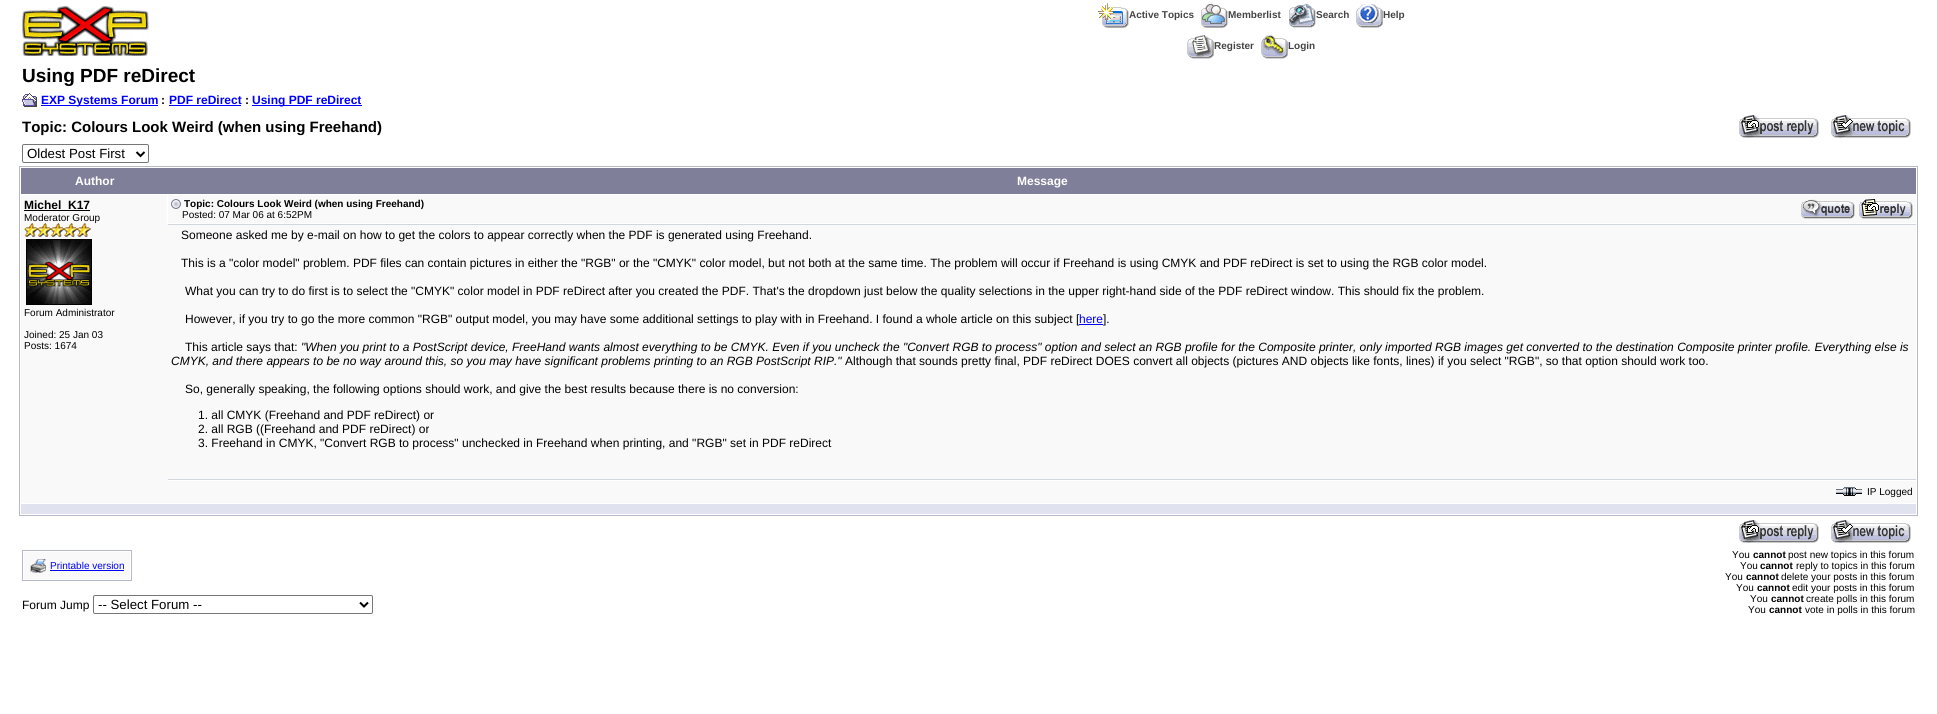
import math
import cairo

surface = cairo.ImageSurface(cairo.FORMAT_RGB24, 1937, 714)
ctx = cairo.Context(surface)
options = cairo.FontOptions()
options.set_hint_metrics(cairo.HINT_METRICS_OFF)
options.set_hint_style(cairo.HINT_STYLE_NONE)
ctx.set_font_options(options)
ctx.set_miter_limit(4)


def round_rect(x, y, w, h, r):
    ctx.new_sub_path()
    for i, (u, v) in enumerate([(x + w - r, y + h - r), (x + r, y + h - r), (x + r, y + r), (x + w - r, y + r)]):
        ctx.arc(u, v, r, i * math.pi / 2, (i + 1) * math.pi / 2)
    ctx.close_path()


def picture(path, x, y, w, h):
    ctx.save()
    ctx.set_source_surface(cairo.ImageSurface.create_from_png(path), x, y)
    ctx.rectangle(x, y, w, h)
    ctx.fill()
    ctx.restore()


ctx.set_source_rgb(1, 1, 1)
ctx.paint()
picture("img1.png", 22, 6, 127, 50)
picture("img2.png", 1098, 3, 31, 25)
ctx.select_font_face("Liberation Sans", cairo.FONT_SLANT_NORMAL, cairo.FONT_WEIGHT_BOLD)
ctx.set_font_size(10)
ctx.set_source_rgb(0.267, 0.267, 0.267)
ctx.move_to(1129, 18)
ctx.show_text("Active Topics")
picture("img3.png", 1201, 4, 27, 24)
ctx.move_to(1228, 18)
ctx.show_text("Memberlist")
picture("img4.png", 1289, 3, 27, 25)
ctx.move_to(1316, 18)
ctx.show_text("Search")
picture("img5.png", 1356, 4, 27, 24)
ctx.move_to(1383, 18)
ctx.show_text("Help")
picture("img6.png", 1187, 35, 27, 24)
ctx.move_to(1214, 49)
ctx.show_text("Register")
picture("img7.png", 1261, 35, 27, 24)
ctx.move_to(1288, 49)
ctx.show_text("Login")
ctx.set_font_size(19)
ctx.set_source_rgb(0, 0, 0)
ctx.move_to(22, 82)
ctx.show_text("Using PDF reDirect")
picture("img8.png", 22, 93, 15, 14)
ctx.set_source_rgb(0, 0, 1)
ctx.rectangle(41, 105, 117, 1)
ctx.fill()
ctx.set_font_size(12)
ctx.move_to(41, 104)
ctx.show_text("EXP Systems Forum")
ctx.set_source_rgb(0, 0, 0)
ctx.move_to(161, 104)
ctx.show_text(":")
ctx.set_source_rgb(0, 0, 1)
ctx.move_to(169, 104)
ctx.show_text("PDF reDirect")
ctx.rectangle(169, 105, 72, 1)
ctx.fill()
ctx.set_source_rgb(0, 0, 0)
ctx.move_to(245, 104)
ctx.show_text(":")
ctx.set_source_rgb(0, 0, 1)
ctx.rectangle(252, 105, 110, 1)
ctx.fill()
ctx.move_to(252, 104)
ctx.show_text("Using PDF reDirect")
ctx.set_font_size(15)
ctx.set_source_rgb(0, 0, 0)
ctx.move_to(22, 132)
ctx.show_text("Topic: Colours Look Weird (when using Freehand)")
picture("img9.png", 1739, 115, 80, 23)
picture("img10.png", 1831, 115, 80, 23)
round_rect(22.5, 144.5, 126, 18, 1.5)
ctx.set_source_rgb(0.463, 0.463, 0.463)
ctx.set_line_width(1)
ctx.stroke()
ctx.new_path()
ctx.move_to(136.5, 152)
ctx.line_to(140.5, 156)
ctx.line_to(144.5, 152)
ctx.set_source_rgb(0, 0, 0)
ctx.set_line_width(2)
ctx.stroke()
ctx.select_font_face("Liberation Sans")
ctx.set_font_size(13.25)
ctx.move_to(27, 158)
ctx.show_text("Oldest Post First")
ctx.rectangle(19.5, 166.5, 1898, 349)
ctx.set_source_rgb(0.714, 0.725, 0.796)
ctx.set_line_width(1)
ctx.stroke()
ctx.set_source_rgb(0.498, 0.498, 0.6)
ctx.rectangle(21, 168, 1895, 26)
ctx.fill()
ctx.select_font_face("Liberation Sans", cairo.FONT_SLANT_NORMAL, cairo.FONT_WEIGHT_BOLD)
ctx.set_font_size(12)
ctx.set_source_rgb(1, 1, 1)
ctx.move_to(75, 185)
ctx.show_text("Author")
ctx.move_to(1017, 185)
ctx.show_text("Message")
ctx.set_source_rgb(0.973, 0.973, 0.973)
ctx.rectangle(21, 195, 146, 286)
ctx.fill()
ctx.set_source_rgb(0, 0, 0)
ctx.rectangle(24, 210, 66, 1)
ctx.fill()
ctx.move_to(24, 209)
ctx.show_text("Michel_K17")
ctx.select_font_face("Liberation Sans")
ctx.set_font_size(10)
ctx.move_to(24, 221)
ctx.show_text("Moderator Group")
picture("img11.png", 24, 223, 67, 14)
ctx.rectangle(26.5, 239.5, 65, 65)
ctx.stroke()
picture("img12.png", 27, 240, 64, 64)
ctx.move_to(24, 316)
ctx.show_text("Forum Administrator")
ctx.move_to(24, 338)
ctx.show_text("Joined: 25 Jan 03")
ctx.move_to(24, 349)
ctx.show_text("Posts: 1674")
ctx.set_source_rgb(0.973, 0.973, 0.973)
ctx.rectangle(168, 195, 1748, 28)
ctx.fill()
picture("img13.png", 171, 199, 10, 10)
ctx.select_font_face("Liberation Sans", cairo.FONT_SLANT_NORMAL, cairo.FONT_WEIGHT_BOLD)
ctx.set_source_rgb(0, 0, 0)
ctx.move_to(184, 207)
ctx.show_text("Topic: Colours Look Weird (when using Freehand)")
picture("img14.png", 1801, 199, 54, 20)
picture("img15.png", 1859, 199, 54, 20)
ctx.select_font_face("Liberation Sans")
ctx.move_to(182, 218)
ctx.show_text("Posted: 07 Mar 06 at 6:52PM")
ctx.set_source_rgb(0.973, 0.973, 0.973)
ctx.rectangle(167, 224, 1749, 256)
ctx.fill()
ctx.set_source_rgb(0.82, 0.843, 0.863)
ctx.rectangle(168, 224, 1748, 1)
ctx.fill()
ctx.rectangle(168, 479, 1748, 1)
ctx.fill()
ctx.set_font_size(12)
ctx.set_source_rgb(0, 0, 0)
ctx.move_to(181, 239)
ctx.show_text("Someone asked me by e-mail on how to get the colors to appear correctly when the PDF is generated using Freehand.")
ctx.move_to(181, 267)
ctx.show_text("This is a \"color model\" problem. PDF files can contain pictures in either the \"RGB\" or the \"CMYK\" color model, but not both at the same time. The problem will occur if Freehand is using CMYK and PDF reDirect is set to using the RGB color model.")
ctx.move_to(185, 295)
ctx.show_text("What you can try to do first is to select the \"CMYK\" color model in PDF reDirect after you created the PDF. That's the dropdown just below the quality selections in the upper right-hand side of the PDF reDirect window. This should fix the problem.")
ctx.move_to(185, 323)
ctx.show_text("However, if you try to go the more common \"RGB\" output model, you may have some additional settings to play with in Freehand. I found a whole article on this subject [")
ctx.set_source_rgb(0, 0, 1)
ctx.move_to(1079, 323)
ctx.show_text("here")
ctx.rectangle(1079, 324, 24, 1)
ctx.fill()
ctx.set_source_rgb(0, 0, 0)
ctx.move_to(1103, 323)
ctx.show_text("].")
ctx.move_to(185, 351)
ctx.show_text("This article says that:")
ctx.select_font_face("Liberation Sans", cairo.FONT_SLANT_ITALIC)
ctx.move_to(301, 351)
ctx.show_text("\"When you print to a PostScript device, FreeHand wants almost everything to be CMYK. Even if you uncheck the \"Convert RGB to process\" option and select an RGB profile for the Composite printer, only imported RGB images get converted to the destination Composite printer profile. Everything else is")
ctx.move_to(171, 365)
ctx.show_text("CMYK, and there appears to be no way around this, so you may have significant problems printing to an RGB PostScript RIP.\"")
ctx.select_font_face("Liberation Sans")
ctx.move_to(845, 365)
ctx.show_text("Although that sounds pretty final, PDF reDirect DOES convert all objects (pictures AND objects like fonts, lines) if you select \"RGB\", so that option should work too.")
ctx.move_to(185, 393)
ctx.show_text("So, generally speaking, the following options should work, and give the best results because there is no conversion:")
ctx.move_to(198, 419)
ctx.show_text("1. all CMYK (Freehand and PDF reDirect) or")
ctx.move_to(198, 433)
ctx.show_text("2. all RGB ((Freehand and PDF reDirect) or")
ctx.move_to(198, 447)
ctx.show_text("3. Freehand in CMYK, \"Convert RGB to process\" unchecked in Freehand when printing, and \"RGB\" set in PDF reDirect")
ctx.set_source_rgb(0.973, 0.973, 0.973)
ctx.rectangle(21, 481, 1895, 22)
ctx.fill()
picture("img16.png", 1836, 487, 26, 9)
ctx.set_font_size(10)
ctx.set_source_rgb(0, 0, 0)
ctx.move_to(1867, 495)
ctx.show_text("IP Logged")
ctx.set_source_rgb(0.882, 0.886, 0.941)
ctx.rectangle(21, 504, 1895, 10)
ctx.fill()
picture("img9.png", 1739, 520, 80, 23)
picture("img10.png", 1831, 520, 80, 23)
ctx.rectangle(22.5, 550.5, 109, 30)
ctx.set_source_rgb(0.714, 0.725, 0.796)
ctx.stroke()
ctx.set_source_rgb(0.973, 0.973, 0.973)
ctx.rectangle(24, 552, 106, 27)
ctx.fill()
picture("img17.png", 30, 559, 16, 14)
ctx.set_source_rgb(0, 0, 1)
ctx.move_to(50, 569)
ctx.show_text("Printable version")
ctx.rectangle(50, 570, 74, 1)
ctx.fill()
ctx.set_font_size(12)
ctx.set_source_rgb(0, 0, 0)
ctx.move_to(22, 609)
ctx.show_text("Forum Jump")
round_rect(93.5, 595.5, 279, 18, 1.5)
ctx.set_source_rgb(0.463, 0.463, 0.463)
ctx.stroke()
ctx.new_path()
ctx.move_to(360, 602.5)
ctx.line_to(364, 606.5)
ctx.line_to(368, 602.5)
ctx.set_source_rgb(0, 0, 0)
ctx.set_line_width(2)
ctx.stroke()
ctx.set_font_size(13.25)
ctx.move_to(98, 609)
ctx.show_text("-- Select Forum --")
ctx.set_font_size(10)
ctx.move_to(1732, 558)
ctx.show_text("You")
ctx.select_font_face("Liberation Sans", cairo.FONT_SLANT_NORMAL, cairo.FONT_WEIGHT_BOLD)
ctx.move_to(1753, 558)
ctx.show_text("cannot")
ctx.select_font_face("Liberation Sans")
ctx.move_to(1788, 558)
ctx.show_text("post new topics in this forum")
ctx.move_to(1740, 569)
ctx.show_text("You")
ctx.select_font_face("Liberation Sans", cairo.FONT_SLANT_NORMAL, cairo.FONT_WEIGHT_BOLD)
ctx.move_to(1760, 569)
ctx.show_text("cannot")
ctx.select_font_face("Liberation Sans")
ctx.move_to(1796, 569)
ctx.show_text("reply to topics in this forum")
ctx.move_to(1725, 580)
ctx.show_text("You")
ctx.select_font_face("Liberation Sans", cairo.FONT_SLANT_NORMAL, cairo.FONT_WEIGHT_BOLD)
ctx.move_to(1746, 580)
ctx.show_text("cannot")
ctx.select_font_face("Liberation Sans")
ctx.move_to(1781, 580)
ctx.show_text("delete your posts in this forum")
ctx.move_to(1736, 591)
ctx.show_text("You")
ctx.select_font_face("Liberation Sans", cairo.FONT_SLANT_NORMAL, cairo.FONT_WEIGHT_BOLD)
ctx.move_to(1757, 591)
ctx.show_text("cannot")
ctx.select_font_face("Liberation Sans")
ctx.move_to(1792, 591)
ctx.show_text("edit your posts in this forum")
ctx.move_to(1750, 602)
ctx.show_text("You")
ctx.select_font_face("Liberation Sans", cairo.FONT_SLANT_NORMAL, cairo.FONT_WEIGHT_BOLD)
ctx.move_to(1771, 602)
ctx.show_text("cannot")
ctx.select_font_face("Liberation Sans")
ctx.move_to(1806, 602)
ctx.show_text("create polls in this forum")
ctx.move_to(1748, 613)
ctx.show_text("You")
ctx.select_font_face("Liberation Sans", cairo.FONT_SLANT_NORMAL, cairo.FONT_WEIGHT_BOLD)
ctx.move_to(1769, 613)
ctx.show_text("cannot")
ctx.select_font_face("Liberation Sans")
ctx.move_to(1805, 613)
ctx.show_text("vote in polls in this forum")
surface.write_to_png("page.png")
